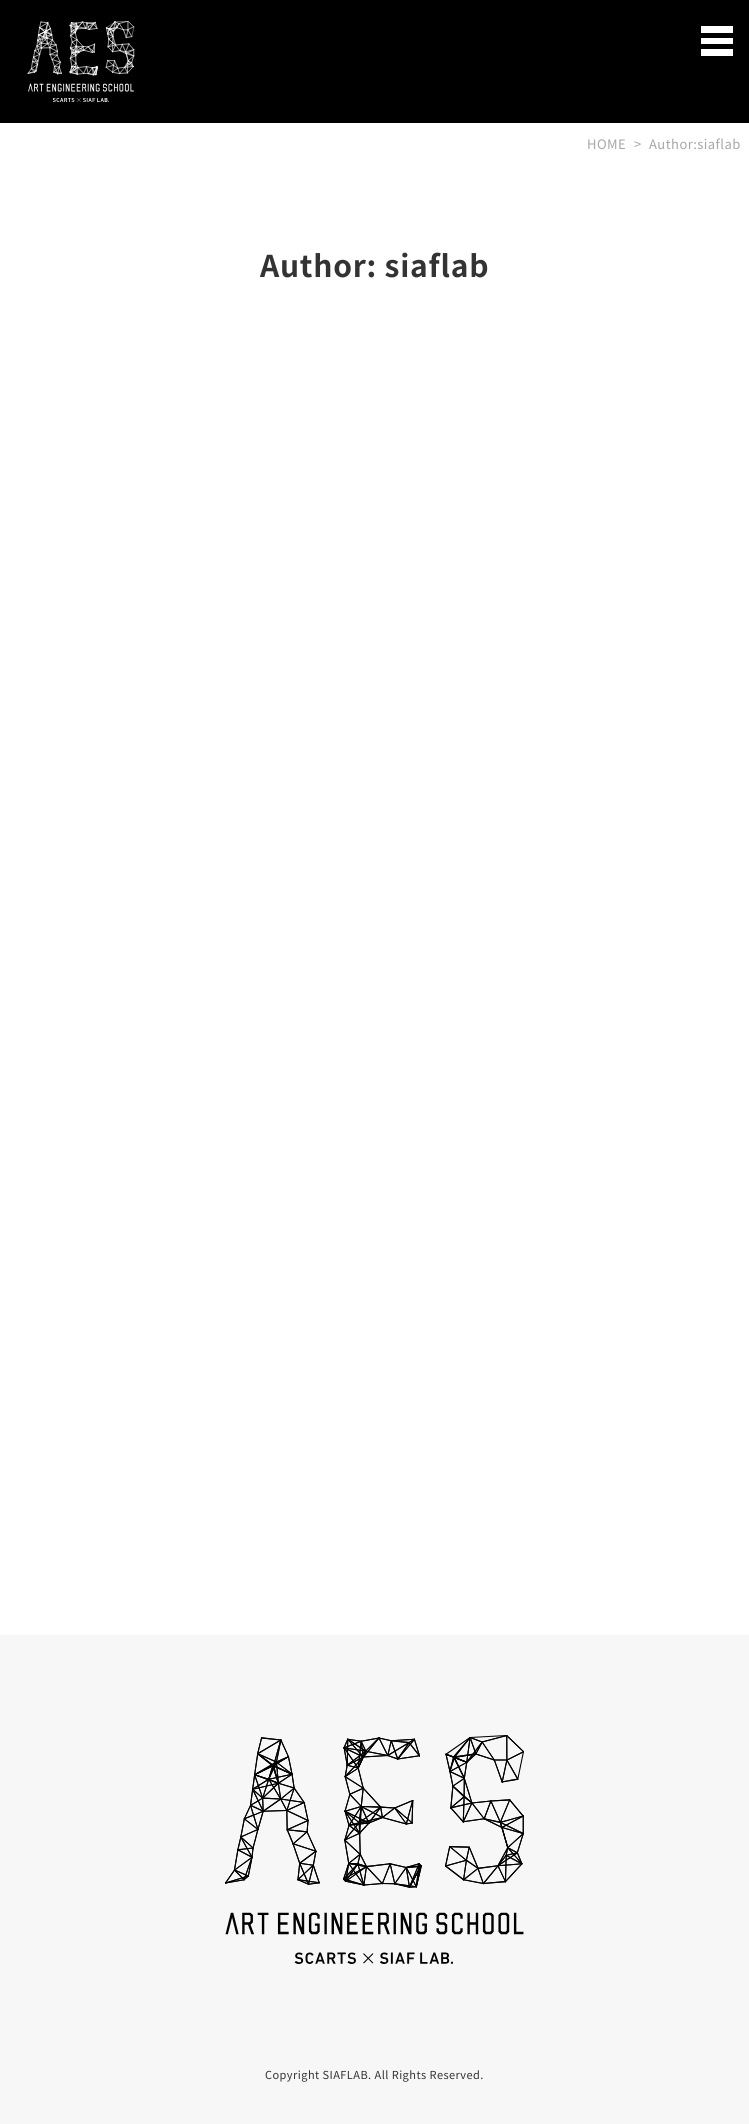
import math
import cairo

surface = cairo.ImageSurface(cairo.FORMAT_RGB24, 749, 2124)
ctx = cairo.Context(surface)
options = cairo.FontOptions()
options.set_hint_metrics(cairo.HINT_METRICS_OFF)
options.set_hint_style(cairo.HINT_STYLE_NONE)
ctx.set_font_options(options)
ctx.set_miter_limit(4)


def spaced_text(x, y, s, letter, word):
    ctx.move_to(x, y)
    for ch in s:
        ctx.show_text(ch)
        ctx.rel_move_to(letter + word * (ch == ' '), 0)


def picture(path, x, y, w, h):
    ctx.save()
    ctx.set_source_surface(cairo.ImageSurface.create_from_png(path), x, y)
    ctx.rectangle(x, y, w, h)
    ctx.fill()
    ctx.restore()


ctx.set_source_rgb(1, 1, 1)
ctx.paint()
ctx.set_source_rgb(0, 0, 0)
ctx.rectangle(0, 0, 749, 123)
ctx.fill()
picture("img1.png", 27, 21, 108, 81)
ctx.set_source_rgb(1, 1, 1)
ctx.rectangle(701, 26, 32, 7)
ctx.fill()
ctx.rectangle(701, 38, 32, 6)
ctx.fill()
ctx.rectangle(701, 49, 32, 7)
ctx.fill()
ctx.select_font_face("Noto Sans JP")
ctx.set_font_size(13)
ctx.set_source_rgb(0.655, 0.655, 0.655)
spaced_text(587, 149, "HOME", 0.45, 0)
spaced_text(634, 149, ">", 0.45, 0)
spaced_text(649, 149, "Author:siaflab", 0.45, 0)
ctx.select_font_face("Noto Sans JP", cairo.FONT_SLANT_NORMAL, cairo.FONT_WEIGHT_BOLD)
ctx.set_font_size(30)
ctx.set_source_rgb(0.2, 0.2, 0.2)
spaced_text(260, 277, "Author: siaflab", 0.75, 0)
ctx.set_source_rgb(0.965, 0.965, 0.965)
ctx.rectangle(0, 1635, 749, 489)
ctx.fill()
picture("img2.png", 225, 1735, 299, 229)
ctx.select_font_face("Noto Sans JP")
ctx.set_font_size(11)
ctx.set_source_rgb(0.2, 0.2, 0.2)
spaced_text(265, 2079, "Copyright SIAFLAB. All Rights Reserved.", 0.45, 0)
surface.write_to_png("page.png")
